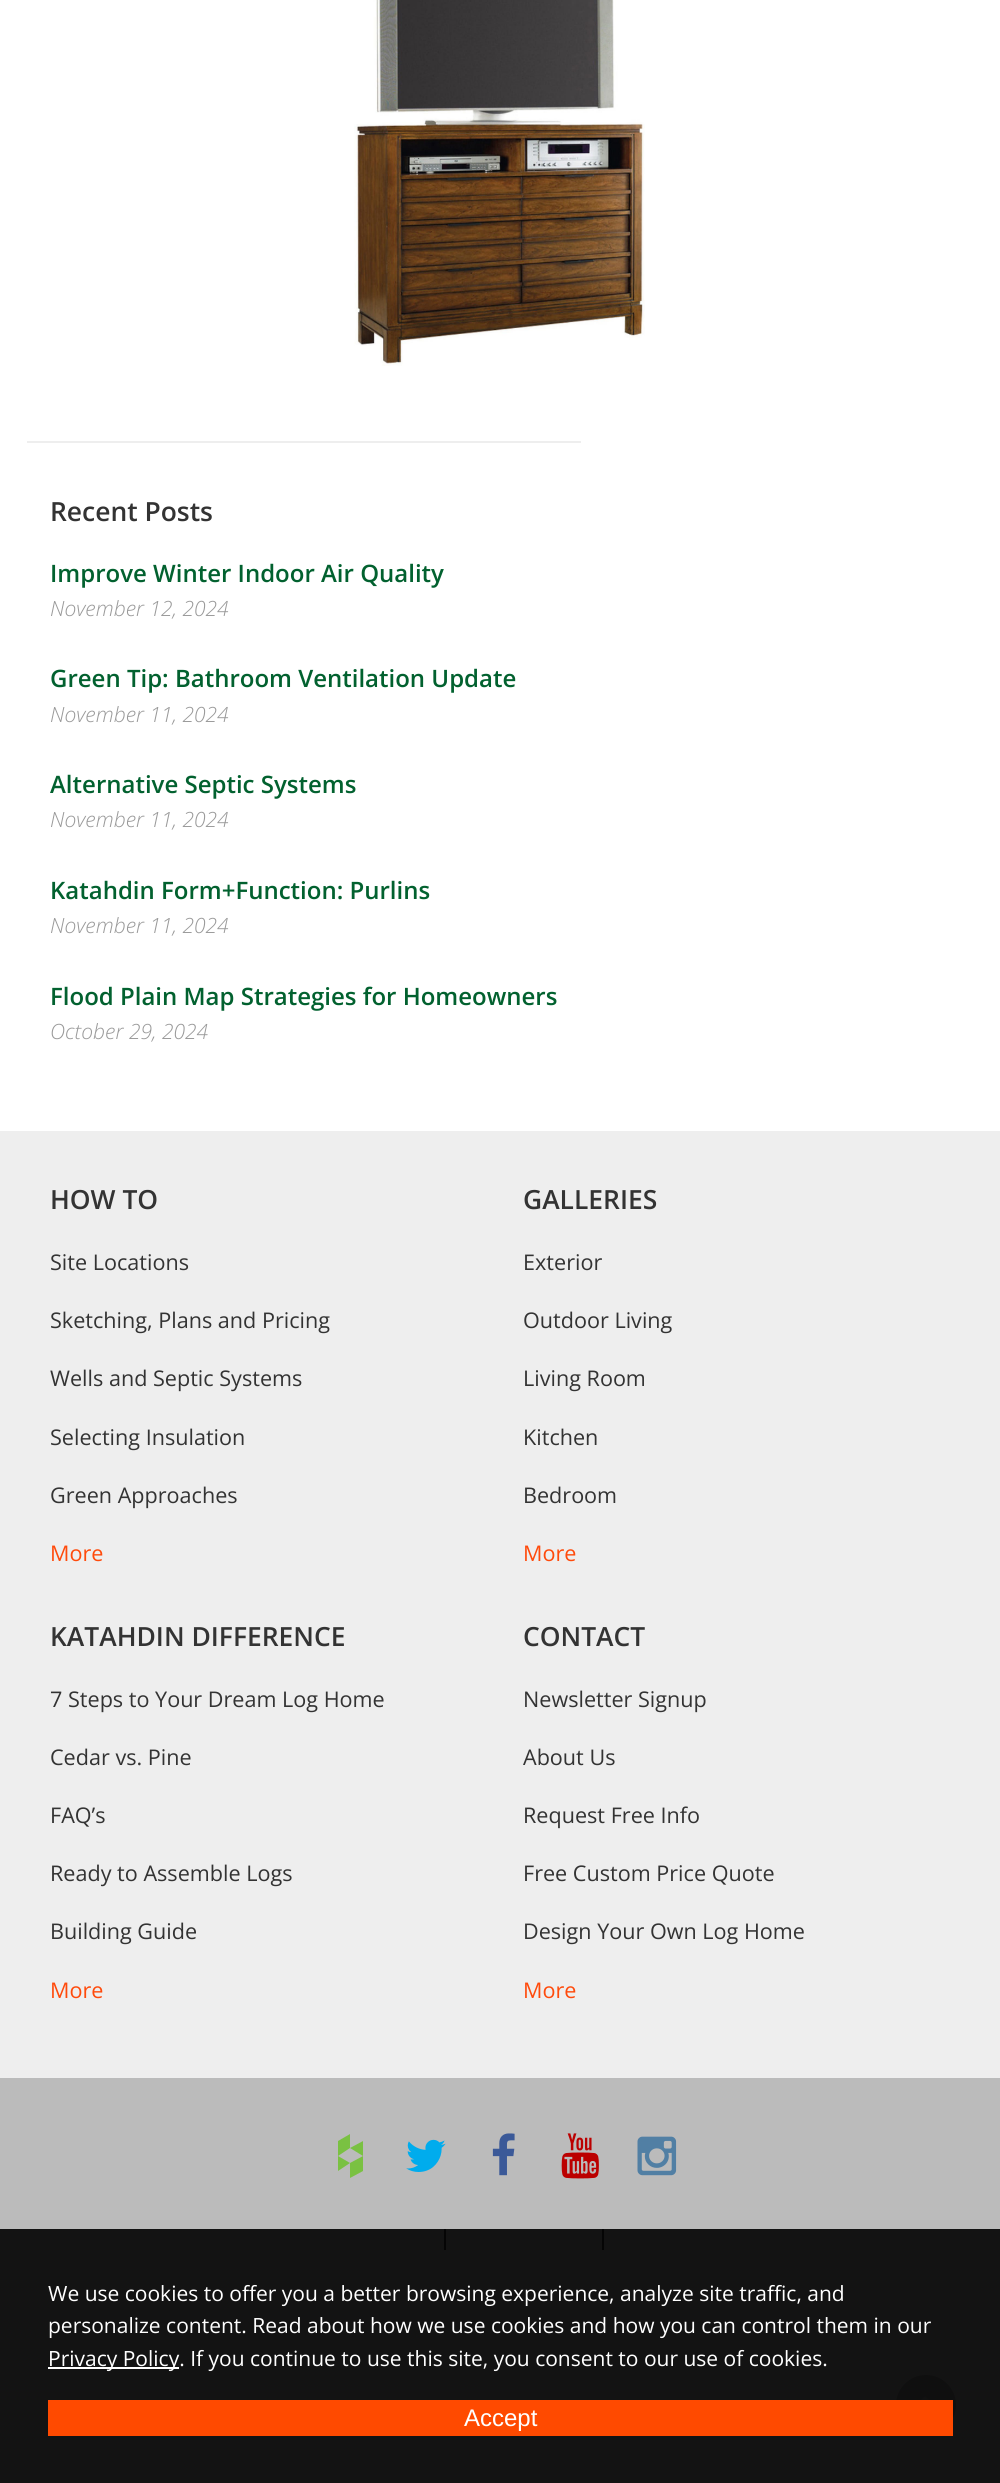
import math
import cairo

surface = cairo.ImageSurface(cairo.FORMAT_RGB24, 1000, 2483)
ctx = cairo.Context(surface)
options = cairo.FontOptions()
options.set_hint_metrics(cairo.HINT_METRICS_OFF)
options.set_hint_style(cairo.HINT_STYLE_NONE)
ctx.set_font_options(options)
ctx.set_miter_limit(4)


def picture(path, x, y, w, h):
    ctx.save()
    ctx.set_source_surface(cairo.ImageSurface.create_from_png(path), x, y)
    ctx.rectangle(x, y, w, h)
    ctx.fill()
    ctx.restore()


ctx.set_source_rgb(1, 1, 1)
ctx.paint()
picture("img1.png", 354, 0, 291, 366)
ctx.set_source_rgb(0.933, 0.933, 0.933)
ctx.rectangle(27, 441, 554, 2)
ctx.fill()
ctx.select_font_face("Open Sans SemiBold")
ctx.set_font_size(26.4)
ctx.set_source_rgb(0.2, 0.2, 0.2)
ctx.move_to(50, 521)
ctx.show_text("Recent Posts")
ctx.set_font_size(24)
ctx.set_source_rgb(0.008, 0.38, 0.184)
ctx.move_to(50, 582)
ctx.show_text("Improve Winter Indoor Air Quality")
ctx.select_font_face("Open Sans Light", cairo.FONT_SLANT_ITALIC)
ctx.set_font_size(21)
ctx.set_source_rgb(0.6, 0.6, 0.6)
ctx.move_to(50, 616)
ctx.show_text("November 12, 2024")
ctx.select_font_face("Open Sans SemiBold")
ctx.set_font_size(24)
ctx.set_source_rgb(0.008, 0.38, 0.184)
ctx.move_to(50, 687)
ctx.show_text("Green Tip: Bathroom Ventilation Update")
ctx.select_font_face("Open Sans Light", cairo.FONT_SLANT_ITALIC)
ctx.set_font_size(21)
ctx.set_source_rgb(0.6, 0.6, 0.6)
ctx.move_to(50, 722)
ctx.show_text("November 11, 2024")
ctx.select_font_face("Open Sans SemiBold")
ctx.set_font_size(24)
ctx.set_source_rgb(0.008, 0.38, 0.184)
ctx.move_to(50, 793)
ctx.show_text("Alternative Septic Systems")
ctx.select_font_face("Open Sans Light", cairo.FONT_SLANT_ITALIC)
ctx.set_font_size(21)
ctx.set_source_rgb(0.6, 0.6, 0.6)
ctx.move_to(50, 827)
ctx.show_text("November 11, 2024")
ctx.select_font_face("Open Sans SemiBold")
ctx.set_font_size(24)
ctx.set_source_rgb(0.008, 0.38, 0.184)
ctx.move_to(50, 899)
ctx.show_text("Katahdin Form+Function: Purlins")
ctx.select_font_face("Open Sans Light", cairo.FONT_SLANT_ITALIC)
ctx.set_font_size(21)
ctx.set_source_rgb(0.6, 0.6, 0.6)
ctx.move_to(50, 933)
ctx.show_text("November 11, 2024")
ctx.select_font_face("Open Sans SemiBold")
ctx.set_font_size(24)
ctx.set_source_rgb(0.008, 0.38, 0.184)
ctx.move_to(50, 1005)
ctx.show_text("Flood Plain Map Strategies for Homeowners")
ctx.select_font_face("Open Sans Light", cairo.FONT_SLANT_ITALIC)
ctx.set_font_size(21)
ctx.set_source_rgb(0.6, 0.6, 0.6)
ctx.move_to(50, 1039)
ctx.show_text("October 29, 2024")
ctx.set_source_rgb(0.933, 0.933, 0.933)
ctx.rectangle(0, 1131, 1000, 947)
ctx.fill()
ctx.select_font_face("Open Sans SemiBold")
ctx.set_font_size(26.4)
ctx.set_source_rgb(0.2, 0.2, 0.2)
ctx.move_to(50, 1209)
ctx.show_text("HOW TO")
ctx.select_font_face("Open Sans")
ctx.set_font_size(21.6)
ctx.move_to(50, 1270)
ctx.show_text("Site Locations")
ctx.move_to(50, 1328)
ctx.show_text("Sketching, Plans and Pricing")
ctx.move_to(50, 1386)
ctx.show_text("Wells and Septic Systems")
ctx.move_to(50, 1445)
ctx.show_text("Selecting Insulation")
ctx.move_to(50, 1503)
ctx.show_text("Green Approaches")
ctx.set_source_rgb(1, 0.29, 0.043)
ctx.move_to(50, 1561)
ctx.show_text("More")
ctx.select_font_face("Open Sans SemiBold")
ctx.set_font_size(26.4)
ctx.set_source_rgb(0.2, 0.2, 0.2)
ctx.move_to(523, 1209)
ctx.show_text("GALLERIES")
ctx.select_font_face("Open Sans")
ctx.set_font_size(21.6)
ctx.move_to(523, 1270)
ctx.show_text("Exterior")
ctx.move_to(523, 1328)
ctx.show_text("Outdoor Living")
ctx.move_to(523, 1386)
ctx.show_text("Living Room")
ctx.move_to(523, 1445)
ctx.show_text("Kitchen")
ctx.move_to(523, 1503)
ctx.show_text("Bedroom")
ctx.set_source_rgb(1, 0.29, 0.043)
ctx.move_to(523, 1561)
ctx.show_text("More")
ctx.select_font_face("Open Sans SemiBold")
ctx.set_font_size(26.4)
ctx.set_source_rgb(0.2, 0.2, 0.2)
ctx.move_to(50, 1646)
ctx.show_text("KATAHDIN DIFFERENCE")
ctx.select_font_face("Open Sans")
ctx.set_font_size(21.6)
ctx.move_to(50, 1707)
ctx.show_text("7 Steps to Your Dream Log Home")
ctx.move_to(50, 1765)
ctx.show_text("Cedar vs. Pine")
ctx.move_to(50, 1823)
ctx.show_text("FAQ’s")
ctx.move_to(50, 1881)
ctx.show_text("Ready to Assemble Logs")
ctx.move_to(50, 1939)
ctx.show_text("Building Guide")
ctx.set_source_rgb(1, 0.29, 0.043)
ctx.move_to(50, 1998)
ctx.show_text("More")
ctx.select_font_face("Open Sans SemiBold")
ctx.set_font_size(26.4)
ctx.set_source_rgb(0.2, 0.2, 0.2)
ctx.move_to(523, 1646)
ctx.show_text("CONTACT")
ctx.select_font_face("Open Sans")
ctx.set_font_size(21.6)
ctx.move_to(523, 1707)
ctx.show_text("Newsletter Signup")
ctx.move_to(523, 1765)
ctx.show_text("About Us")
ctx.move_to(523, 1823)
ctx.show_text("Request Free Info")
ctx.move_to(523, 1881)
ctx.show_text("Free Custom Price Quote")
ctx.move_to(523, 1939)
ctx.show_text("Design Your Own Log Home")
ctx.set_source_rgb(1, 0.29, 0.043)
ctx.move_to(523, 1998)
ctx.show_text("More")
ctx.set_source_rgb(0.733, 0.733, 0.733)
ctx.rectangle(0, 2078, 1000, 151)
ctx.fill()
ctx.set_source_rgb(0.075, 0.075, 0.075)
ctx.rectangle(0, 2229, 1000, 254)
ctx.fill()
ctx.set_source_rgb(0.478, 0.757, 0.259)
ctx.new_path()
ctx.move_to(350, 2163)
ctx.line_to(363, 2156)
ctx.line_to(363, 2171)
ctx.line_to(350, 2178)
ctx.close_path()
ctx.move_to(338, 2156)
ctx.line_to(338, 2171)
ctx.line_to(350, 2163)
ctx.close_path()
ctx.move_to(350, 2134)
ctx.line_to(350, 2148)
ctx.line_to(338, 2156)
ctx.line_to(338, 2141)
ctx.close_path()
ctx.move_to(350, 2148)
ctx.line_to(363, 2141)
ctx.line_to(363, 2156)
ctx.close_path()
ctx.fill()
picture("img2.png", 406, 2139, 40, 33)
picture("img3.png", 492, 2133, 23, 43)
picture("img4.png", 561, 2133, 38, 46)
picture("img5.png", 637, 2136, 40, 40)
ctx.set_source_rgb(0.02, 0.02, 0.02)
ctx.rectangle(444, 2229, 2, 21)
ctx.fill()
ctx.rectangle(602, 2229, 2, 21)
ctx.fill()
ctx.set_source_rgba(0, 0, 0, 0.2)
ctx.arc(926, 2405, 30, 0, 2 * math.pi)
ctx.fill()
picture("img6.png", 921, 2396, 8, 4)
ctx.set_font_size(21)
ctx.set_source_rgb(1, 1, 1)
ctx.move_to(48, 2301)
ctx.show_text("We use cookies to offer you a better browsing experience, analyze site traffic, and")
ctx.move_to(48, 2333)
ctx.show_text("personalize content. Read about how we use cookies and how you can control them in our")
ctx.rectangle(48, 2367, 131, 2)
ctx.fill()
ctx.move_to(48, 2366)
ctx.show_text("Privacy Policy. If you continue to use this site, you consent to our use of cookies.")
ctx.set_source_rgb(1, 0.29, 0)
ctx.rectangle(48, 2400, 905, 36)
ctx.fill()
ctx.select_font_face("Liberation Sans")
ctx.set_font_size(24)
ctx.set_source_rgb(1, 1, 1)
ctx.move_to(464, 2426)
ctx.show_text("Accept")
surface.write_to_png("page.png")
